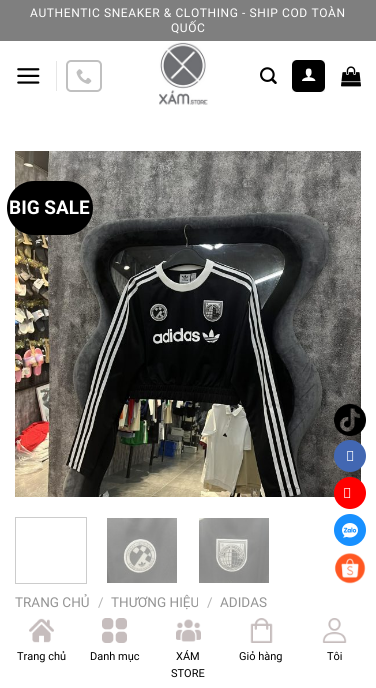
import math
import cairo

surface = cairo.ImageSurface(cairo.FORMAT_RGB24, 376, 688)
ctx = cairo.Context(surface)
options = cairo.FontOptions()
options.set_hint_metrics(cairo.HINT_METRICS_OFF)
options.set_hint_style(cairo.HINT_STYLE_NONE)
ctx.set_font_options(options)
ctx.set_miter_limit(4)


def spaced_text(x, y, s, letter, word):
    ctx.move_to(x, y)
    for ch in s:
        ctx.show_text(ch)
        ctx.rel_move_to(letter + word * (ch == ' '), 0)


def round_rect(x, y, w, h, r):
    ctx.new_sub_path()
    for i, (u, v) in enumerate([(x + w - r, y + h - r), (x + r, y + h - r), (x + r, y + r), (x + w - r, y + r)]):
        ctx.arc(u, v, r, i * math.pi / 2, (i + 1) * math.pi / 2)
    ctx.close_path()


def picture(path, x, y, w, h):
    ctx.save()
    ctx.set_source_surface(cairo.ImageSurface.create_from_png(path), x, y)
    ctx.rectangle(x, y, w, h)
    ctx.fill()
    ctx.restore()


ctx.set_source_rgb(1, 1, 1)
ctx.paint()
ctx.set_source_rgb(0.498, 0.498, 0.498)
ctx.rectangle(0, 0, 376, 41)
ctx.fill()
ctx.select_font_face("Roboto")
ctx.set_font_size(12)
ctx.set_source_rgb(1, 1, 1)
spaced_text(30, 17, "AUTHENTIC SNEAKER & CLOTHING - SHIP COD TOÀN", 0.6, 0)
spaced_text(171, 32, "QUỐC", 0.6, 0)
picture("img1.png", 17, 68, 23, 16)
ctx.set_source_rgb(0.902, 0.902, 0.902)
ctx.rectangle(56, 61, 1, 30)
ctx.fill()
round_rect(67, 61, 34, 30, 4)
ctx.set_source_rgb(0.753, 0.753, 0.753)
ctx.stroke()
picture("img2.png", 76, 69, 16, 15)
picture("img3.png", 159, 42, 49, 63)
picture("img4.png", 260, 67, 17, 17)
ctx.set_source_rgb(0, 0, 0)
round_rect(292, 60, 33, 32, 5)
ctx.fill()
ctx.rectangle(292.5, 60.5, 32, 31)
ctx.set_source_rgba(0, 0, 0, 0.05)
ctx.set_line_width(1)
ctx.stroke()
picture("img5.png", 302, 68, 14, 13)
picture("img6.png", 341, 66, 20, 21)
picture("img7.png", 15, 151, 346, 346)
ctx.set_source_rgb(0, 0, 0)
round_rect(7, 181, 86, 54, 27)
ctx.fill()
ctx.select_font_face("Roboto", cairo.FONT_SLANT_NORMAL, cairo.FONT_WEIGHT_BOLD)
ctx.set_font_size(19)
ctx.set_source_rgb(1, 1, 1)
ctx.move_to(9, 214)
ctx.show_text("BIG SALE")
ctx.rectangle(15.5, 517.5, 71, 66)
ctx.set_source_rgb(0.8, 0.8, 0.8)
ctx.stroke()
picture("img8.png", 107, 518, 70, 65)
picture("img9.png", 199, 518, 70, 65)
ctx.select_font_face("Roboto")
ctx.set_font_size(13.5)
ctx.set_source_rgb(0.58, 0.58, 0.58)
ctx.move_to(15, 607)
ctx.show_text("TRANG CHỦ")
ctx.set_source_rgb(0.698, 0.698, 0.698)
ctx.move_to(98, 607)
ctx.show_text("/")
ctx.set_source_rgb(0.58, 0.58, 0.58)
ctx.move_to(111, 607)
ctx.show_text("THƯƠNG HIỆU")
ctx.set_source_rgb(0.698, 0.698, 0.698)
ctx.move_to(207, 607)
ctx.show_text("/")
ctx.set_source_rgb(0.58, 0.58, 0.58)
ctx.move_to(220, 607)
ctx.show_text("ADIDAS")
picture("img10.png", 334, 404, 32, 32)
ctx.set_source_rgb(0.259, 0.404, 0.698)
ctx.arc(350, 456, 16, 0, 2 * math.pi)
ctx.fill()
picture("img11.png", 347, 451, 7, 10)
ctx.set_source_rgb(1, 0, 0)
ctx.arc(350, 493, 16, 0, 2 * math.pi)
ctx.fill()
picture("img12.png", 344, 488, 7, 10)
ctx.set_source_rgb(0.094, 0.565, 1)
ctx.arc(350, 530, 16, 0, 2 * math.pi)
ctx.fill()
picture("img13.png", 342, 523, 16, 15)
picture("img14.png", 334, 553, 32, 31)
picture("img15.png", 29, 618, 25, 25)
ctx.set_font_size(11)
ctx.set_source_rgb(0, 0, 0)
ctx.move_to(17, 660)
ctx.show_text("Trang chủ")
picture("img16.png", 102, 618, 25, 25)
ctx.move_to(90, 660)
ctx.show_text("Danh mục")
picture("img17.png", 176, 619, 25, 23)
ctx.move_to(176, 660)
ctx.show_text("XÁM")
ctx.move_to(171, 677)
ctx.show_text("STORE")
picture("img18.png", 250, 618, 23, 25)
ctx.move_to(239, 660)
ctx.show_text("Giỏ hàng")
picture("img19.png", 322, 618, 25, 25)
ctx.move_to(327, 660)
ctx.show_text("Tôi")
surface.write_to_png("page.png")
